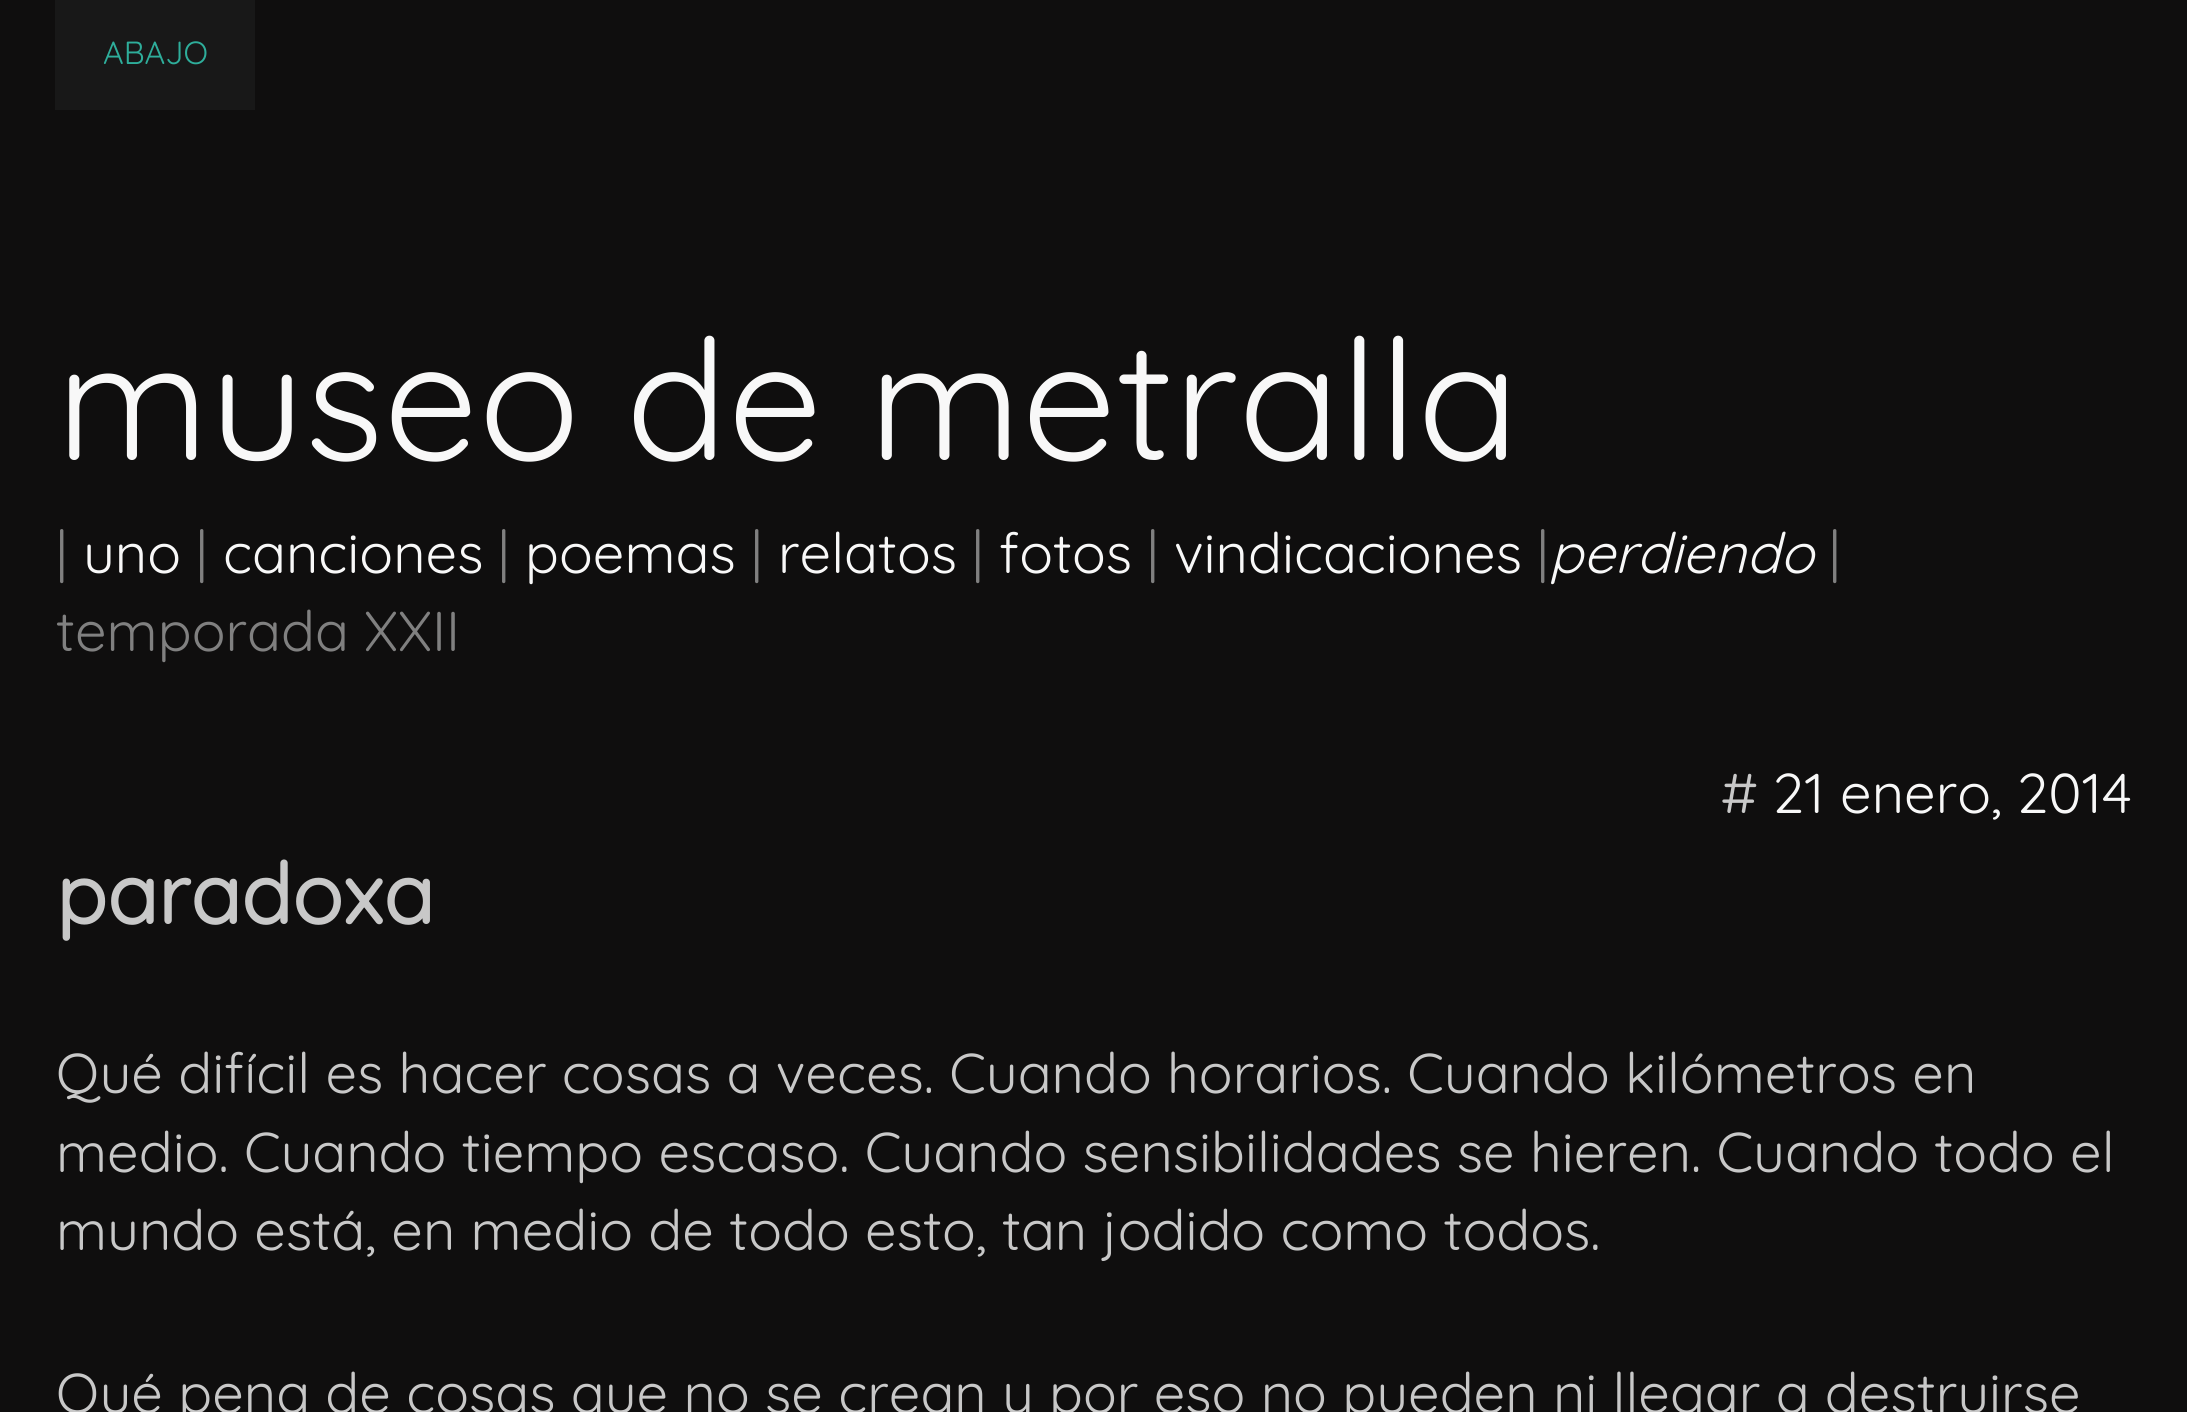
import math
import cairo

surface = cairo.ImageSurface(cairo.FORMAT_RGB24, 2187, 1412)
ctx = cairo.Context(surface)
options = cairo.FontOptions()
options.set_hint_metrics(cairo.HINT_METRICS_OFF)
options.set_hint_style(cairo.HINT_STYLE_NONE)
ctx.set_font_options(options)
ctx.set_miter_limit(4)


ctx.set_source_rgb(0.059, 0.055, 0.055)
ctx.paint()
ctx.set_source_rgb(0.094, 0.094, 0.094)
ctx.rectangle(55, 0, 200, 110)
ctx.fill()
ctx.select_font_face("Quicksand Light")
ctx.set_font_size(32)
ctx.set_source_rgb(0.18, 0.682, 0.608)
ctx.move_to(103, 64)
ctx.show_text("ABAJO")
ctx.set_font_size(168)
ctx.set_source_rgb(0.969, 0.969, 0.969)
ctx.move_to(56, 460)
ctx.show_text("museo de metralla")
ctx.set_font_size(56)
ctx.set_source_rgb(0.502, 0.502, 0.502)
ctx.move_to(56, 573)
ctx.show_text("|")
ctx.set_source_rgb(0.969, 0.969, 0.969)
ctx.move_to(83, 573)
ctx.show_text("uno")
ctx.set_source_rgb(0.502, 0.502, 0.502)
ctx.move_to(196, 573)
ctx.show_text("|")
ctx.set_source_rgb(0.969, 0.969, 0.969)
ctx.move_to(223, 573)
ctx.show_text("canciones")
ctx.set_source_rgb(0.502, 0.502, 0.502)
ctx.move_to(498, 573)
ctx.show_text("|")
ctx.set_source_rgb(0.969, 0.969, 0.969)
ctx.move_to(525, 573)
ctx.show_text("poemas")
ctx.set_source_rgb(0.502, 0.502, 0.502)
ctx.move_to(751, 573)
ctx.show_text("|")
ctx.set_source_rgb(0.969, 0.969, 0.969)
ctx.move_to(778, 573)
ctx.show_text("relatos")
ctx.set_source_rgb(0.502, 0.502, 0.502)
ctx.move_to(972, 573)
ctx.show_text("|")
ctx.set_source_rgb(0.969, 0.969, 0.969)
ctx.move_to(999, 573)
ctx.show_text("fotos")
ctx.set_source_rgb(0.502, 0.502, 0.502)
ctx.move_to(1147, 573)
ctx.show_text("|")
ctx.set_source_rgb(0.969, 0.969, 0.969)
ctx.move_to(1174, 573)
ctx.show_text("vindicaciones")
ctx.set_source_rgb(0.502, 0.502, 0.502)
ctx.move_to(1537, 573)
ctx.show_text("|")
ctx.select_font_face("Quicksand Light", cairo.FONT_SLANT_ITALIC)
ctx.set_source_rgb(0.969, 0.969, 0.969)
ctx.move_to(1549, 573)
ctx.show_text("perdiendo")
ctx.select_font_face("Quicksand Light")
ctx.set_source_rgb(0.502, 0.502, 0.502)
ctx.move_to(1829, 573)
ctx.show_text("|")
ctx.move_to(56, 651)
ctx.show_text("temporada XXII")
ctx.set_source_rgb(0.784, 0.784, 0.784)
ctx.move_to(1721, 813)
ctx.show_text("#")
ctx.set_source_rgb(0.969, 0.969, 0.969)
ctx.move_to(1773, 813)
ctx.show_text("21 enero, 2014")
ctx.select_font_face("Quicksand", cairo.FONT_SLANT_NORMAL, cairo.FONT_WEIGHT_BOLD)
ctx.set_font_size(84)
ctx.set_source_rgb(0.784, 0.784, 0.784)
ctx.move_to(56, 924)
ctx.show_text("paradoxa")
ctx.select_font_face("Quicksand Light")
ctx.set_font_size(56)
ctx.move_to(56, 1093)
ctx.show_text("Qué difícil es hacer cosas a veces. Cuando horarios. Cuando kilómetros en")
ctx.move_to(56, 1172)
ctx.show_text("medio. Cuando tiempo escaso. Cuando sensibilidades se hieren. Cuando todo el")
ctx.move_to(56, 1250)
ctx.show_text("mundo está, en medio de todo esto, tan jodido como todos.")
ctx.move_to(56, 1413)
ctx.show_text("Qué pena de cosas que no se crean y por eso no pueden ni llegar a destruirse")
surface.write_to_png("page.png")
